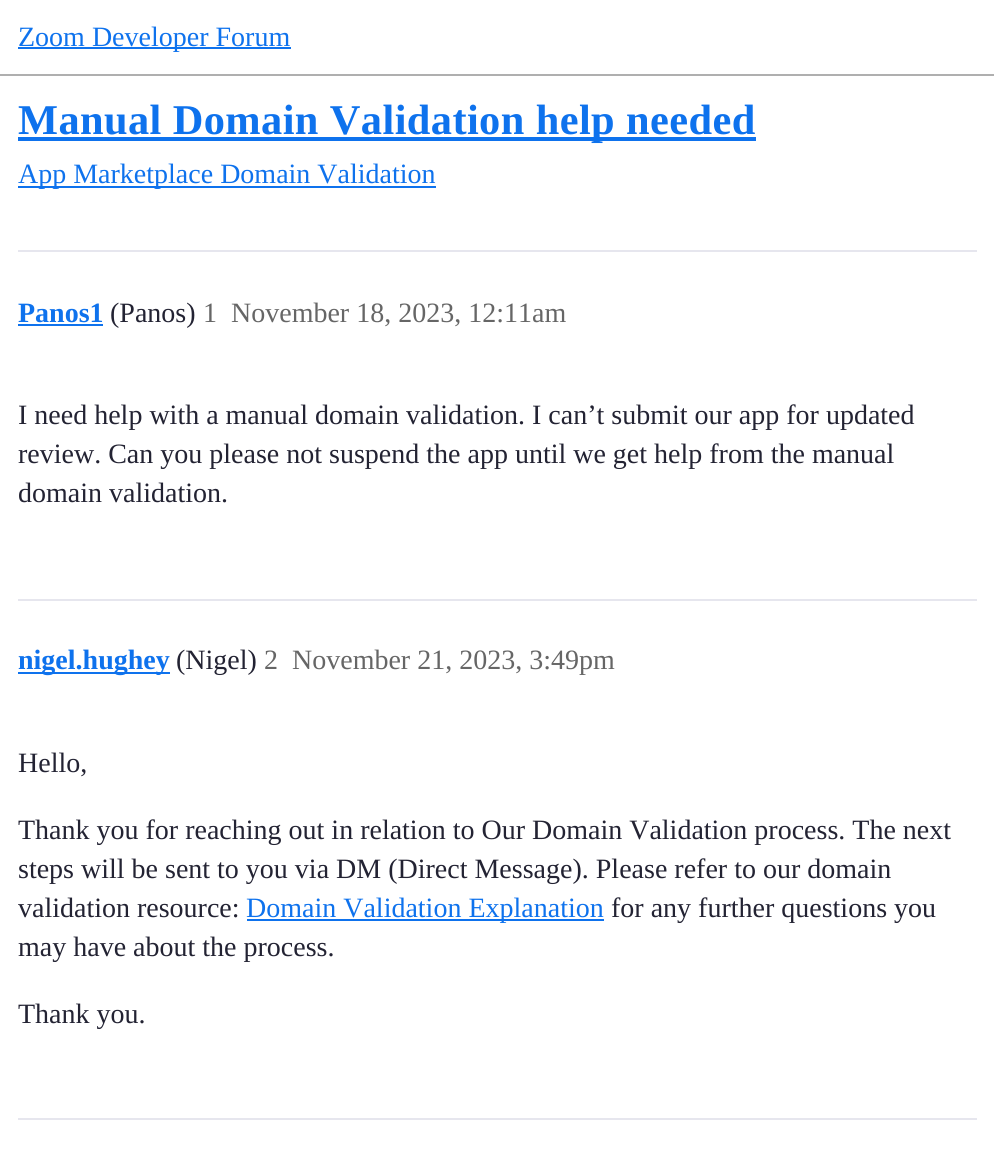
import math
import cairo

surface = cairo.ImageSurface(cairo.FORMAT_RGB24, 994, 1163)
ctx = cairo.Context(surface)
options = cairo.FontOptions()
options.set_hint_metrics(cairo.HINT_METRICS_OFF)
options.set_hint_style(cairo.HINT_STYLE_NONE)
ctx.set_font_options(options)
ctx.set_miter_limit(4)


def spaced_text(x, y, s, letter, word):
    ctx.move_to(x, y)
    for ch in s:
        ctx.show_text(ch)
        ctx.rel_move_to(letter + word * (ch == ' '), 0)


ctx.set_source_rgb(1, 1, 1)
ctx.paint()
ctx.set_source_rgb(0.686, 0.686, 0.686)
ctx.rectangle(0, 74, 994, 2)
ctx.fill()
ctx.set_source_rgb(0.055, 0.447, 0.929)
ctx.rectangle(18, 47, 273, 2)
ctx.fill()
ctx.select_font_face("Liberation Serif")
ctx.set_font_size(28)
ctx.move_to(18, 46)
ctx.show_text("Zoom Developer Forum")
ctx.rectangle(18, 137, 738, 4)
ctx.fill()
ctx.select_font_face("Liberation Serif", cairo.FONT_SLANT_NORMAL, cairo.FONT_WEIGHT_BOLD)
ctx.set_font_size(42.4)
spaced_text(18, 134, "Manual Domain Validation help needed", 0.4, 0)
ctx.rectangle(18, 186, 418, 2)
ctx.fill()
ctx.select_font_face("Liberation Serif")
ctx.set_font_size(28)
ctx.move_to(18, 183)
ctx.show_text("App Marketplace Domain Validation")
ctx.set_source_rgb(0.902, 0.902, 0.933)
ctx.rectangle(18, 250, 959, 2)
ctx.fill()
ctx.select_font_face("Liberation Serif", cairo.FONT_SLANT_NORMAL, cairo.FONT_WEIGHT_BOLD)
ctx.set_source_rgb(0.055, 0.447, 0.929)
ctx.move_to(18, 322)
ctx.show_text("Panos1")
ctx.rectangle(18, 324, 85, 2)
ctx.fill()
ctx.select_font_face("Liberation Serif")
ctx.set_source_rgb(0.137, 0.137, 0.2)
ctx.move_to(110, 322)
ctx.show_text("(Panos)")
ctx.set_source_rgb(0.4, 0.4, 0.4)
ctx.move_to(203, 322)
ctx.show_text("1")
ctx.move_to(231, 322)
ctx.show_text("November 18, 2023, 12:11am")
ctx.set_source_rgb(0.137, 0.137, 0.2)
ctx.move_to(18, 424)
ctx.show_text("I need help with a manual domain validation. I can’t submit our app for updated")
ctx.move_to(18, 463)
ctx.show_text("review. Can you please not suspend the app until we get help from the manual")
ctx.move_to(18, 502)
ctx.show_text("domain validation.")
ctx.set_source_rgb(0.902, 0.902, 0.933)
ctx.rectangle(18, 599, 959, 2)
ctx.fill()
ctx.set_source_rgb(0.055, 0.447, 0.929)
ctx.rectangle(18, 672, 152, 2)
ctx.fill()
ctx.select_font_face("Liberation Serif", cairo.FONT_SLANT_NORMAL, cairo.FONT_WEIGHT_BOLD)
ctx.move_to(18, 669)
ctx.show_text("nigel.hughey")
ctx.select_font_face("Liberation Serif")
ctx.set_source_rgb(0.137, 0.137, 0.2)
ctx.move_to(176, 669)
ctx.show_text("(Nigel)")
ctx.set_source_rgb(0.4, 0.4, 0.4)
ctx.move_to(264, 669)
ctx.show_text("2")
ctx.move_to(292, 669)
ctx.show_text("November 21, 2023, 3:49pm")
ctx.set_source_rgb(0.137, 0.137, 0.2)
ctx.move_to(18, 772)
ctx.show_text("Hello,")
ctx.move_to(18, 839)
ctx.show_text("Thank you for reaching out in relation to Our Domain Validation process. The next")
ctx.move_to(18, 878)
ctx.show_text("steps will be sent to you via DM (Direct Message). Please refer to our domain")
ctx.move_to(18, 917)
ctx.show_text("validation resource:")
ctx.set_source_rgb(0.055, 0.447, 0.929)
ctx.rectangle(247, 919, 357, 2)
ctx.fill()
ctx.move_to(246, 917)
ctx.show_text("Domain Validation Explanation")
ctx.set_source_rgb(0.137, 0.137, 0.2)
ctx.move_to(611, 917)
ctx.show_text("for any further questions you")
ctx.move_to(18, 956)
ctx.show_text("may have about the process.")
ctx.move_to(18, 1023)
ctx.show_text("Thank you.")
ctx.set_source_rgb(0.902, 0.902, 0.933)
ctx.rectangle(18, 1118, 959, 2)
ctx.fill()
surface.write_to_png("page.png")
